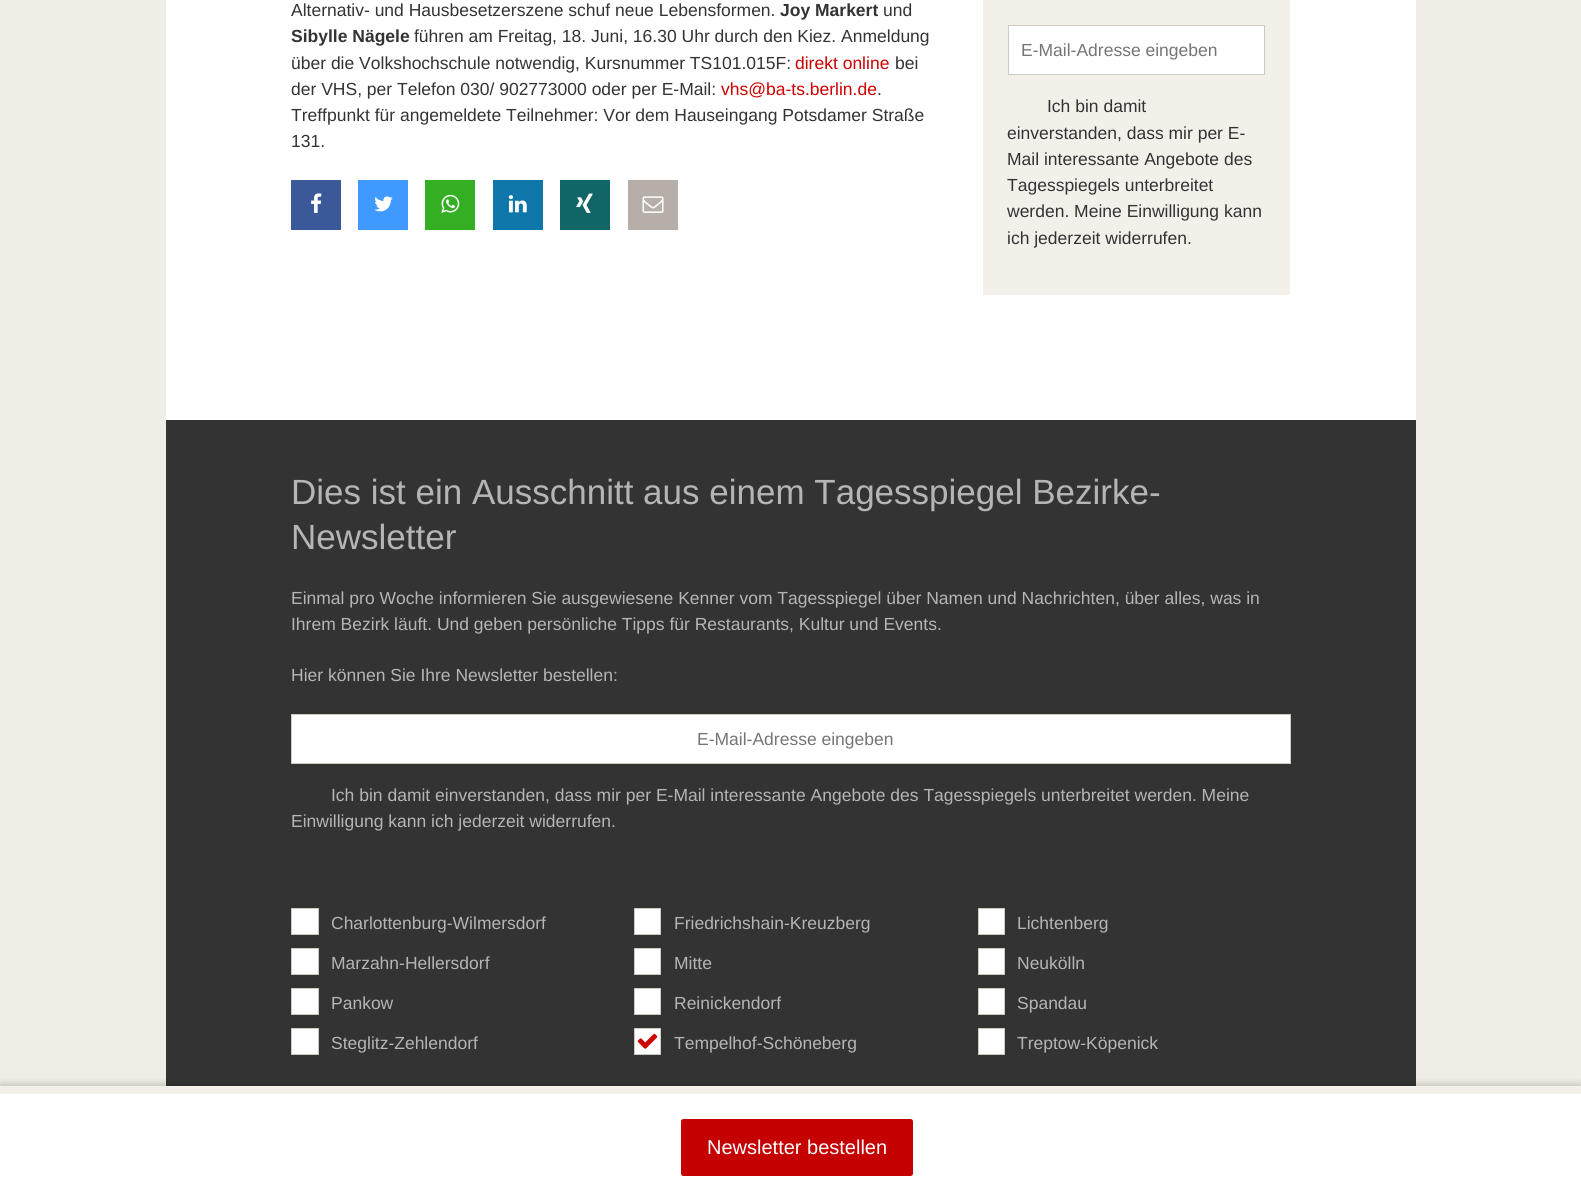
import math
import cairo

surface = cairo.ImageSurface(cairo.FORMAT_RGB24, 1581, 1201)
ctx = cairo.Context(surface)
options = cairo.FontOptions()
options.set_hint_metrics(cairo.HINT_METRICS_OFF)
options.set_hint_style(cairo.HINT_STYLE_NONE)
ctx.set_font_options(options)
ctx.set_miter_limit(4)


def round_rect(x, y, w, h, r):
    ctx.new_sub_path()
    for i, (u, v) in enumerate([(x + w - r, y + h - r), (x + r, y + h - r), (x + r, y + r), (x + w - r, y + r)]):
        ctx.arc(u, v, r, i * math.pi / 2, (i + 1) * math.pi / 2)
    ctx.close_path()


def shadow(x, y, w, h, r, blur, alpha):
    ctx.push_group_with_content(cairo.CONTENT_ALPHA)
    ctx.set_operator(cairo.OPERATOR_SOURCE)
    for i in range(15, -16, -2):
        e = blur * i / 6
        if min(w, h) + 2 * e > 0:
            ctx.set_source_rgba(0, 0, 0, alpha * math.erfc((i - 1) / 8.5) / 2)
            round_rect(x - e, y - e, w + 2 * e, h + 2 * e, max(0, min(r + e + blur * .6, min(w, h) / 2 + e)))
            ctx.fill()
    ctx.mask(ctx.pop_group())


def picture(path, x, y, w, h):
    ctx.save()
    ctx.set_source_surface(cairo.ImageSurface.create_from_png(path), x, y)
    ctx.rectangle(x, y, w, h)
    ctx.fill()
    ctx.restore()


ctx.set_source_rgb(0.937, 0.929, 0.894)
ctx.paint()
ctx.set_source_rgb(1, 1, 1)
ctx.rectangle(166, 0, 1250, 420)
ctx.fill()
ctx.select_font_face("Liberation Sans")
ctx.set_font_size(17.5)
ctx.set_source_rgb(0.2, 0.2, 0.2)
ctx.move_to(291, 16)
ctx.show_text("Alternativ- und Hausbesetzerszene schuf neue Lebensformen.")
ctx.select_font_face("Liberation Sans", cairo.FONT_SLANT_NORMAL, cairo.FONT_WEIGHT_BOLD)
ctx.move_to(780, 16)
ctx.show_text("Joy Markert")
ctx.select_font_face("Liberation Sans")
ctx.move_to(883, 16)
ctx.show_text("und")
ctx.select_font_face("Liberation Sans", cairo.FONT_SLANT_NORMAL, cairo.FONT_WEIGHT_BOLD)
ctx.move_to(291, 42)
ctx.show_text("Sibylle Nägele")
ctx.select_font_face("Liberation Sans")
ctx.move_to(414, 42)
ctx.show_text("führen am Freitag, 18. Juni, 16.30 Uhr durch den Kiez. Anmeldung")
ctx.move_to(291, 69)
ctx.show_text("über die Volkshochschule notwendig, Kursnummer TS101.015F:")
ctx.set_source_rgb(0.808, 0, 0)
ctx.move_to(795, 69)
ctx.show_text("direkt online")
ctx.set_source_rgb(0.2, 0.2, 0.2)
ctx.move_to(895, 69)
ctx.show_text("bei")
ctx.move_to(291, 95)
ctx.show_text("der VHS, per Telefon 030/ 902773000 oder per E-Mail:")
ctx.set_source_rgb(0.808, 0, 0)
ctx.move_to(721, 95)
ctx.show_text("vhs@ba-ts.berlin.de")
ctx.set_source_rgb(0.2, 0.2, 0.2)
ctx.move_to(877, 95)
ctx.show_text(".")
ctx.move_to(291, 121)
ctx.show_text("Treffpunkt für angemeldete Teilnehmer: Vor dem Hauseingang Potsdamer Straße")
ctx.move_to(291, 147)
ctx.show_text("131.")
ctx.set_source_rgb(0.231, 0.349, 0.596)
ctx.rectangle(291, 180, 50, 50)
ctx.fill()
picture("img1.png", 311, 193, 11, 20)
ctx.set_source_rgb(0.251, 0.6, 1)
ctx.rectangle(358, 180, 50, 50)
ctx.fill()
picture("img2.png", 374, 196, 19, 16)
ctx.set_source_rgb(0.204, 0.686, 0.137)
ctx.rectangle(425, 180, 50, 50)
ctx.fill()
picture("img3.png", 441, 194, 19, 19)
ctx.set_source_rgb(0.055, 0.463, 0.659)
ctx.rectangle(493, 180, 50, 50)
ctx.fill()
picture("img4.png", 508, 195, 19, 18)
ctx.set_source_rgb(0.071, 0.396, 0.404)
ctx.rectangle(560, 180, 50, 50)
ctx.fill()
picture("img5.png", 576, 193, 17, 20)
ctx.set_source_rgb(0.714, 0.686, 0.663)
ctx.rectangle(628, 180, 50, 50)
ctx.fill()
picture("img6.png", 642, 196, 22, 17)
ctx.set_source_rgb(0.949, 0.941, 0.914)
ctx.rectangle(983, 0, 307, 295)
ctx.fill()
ctx.set_source_rgb(1, 1, 1)
ctx.rectangle(1008.5, 25.5, 256, 49)
ctx.fill_preserve()
ctx.set_source_rgb(0.804, 0.796, 0.737)
ctx.set_line_width(1)
ctx.stroke()
ctx.set_source_rgb(0.459, 0.459, 0.459)
ctx.move_to(1021, 56)
ctx.show_text("E-Mail-Adresse eingeben")
ctx.set_source_rgb(0.2, 0.2, 0.2)
ctx.move_to(1047, 112)
ctx.show_text("Ich bin damit")
ctx.move_to(1007, 139)
ctx.show_text("einverstanden, dass mir per E-")
ctx.move_to(1007, 165)
ctx.show_text("Mail interessante Angebote des")
ctx.move_to(1007, 191)
ctx.show_text("Tagesspiegels unterbreitet")
ctx.move_to(1007, 217)
ctx.show_text("werden. Meine Einwilligung kann")
ctx.move_to(1007, 244)
ctx.show_text("ich jederzeit widerrufen.")
ctx.rectangle(166, 420, 1250, 666)
ctx.fill()
ctx.set_font_size(35)
ctx.set_source_rgb(0.71, 0.71, 0.71)
ctx.move_to(291, 504)
ctx.show_text("Dies ist ein Ausschnitt aus einem Tagesspiegel Bezirke-")
ctx.move_to(291, 549)
ctx.show_text("Newsletter")
ctx.set_font_size(17.5)
ctx.move_to(291, 604)
ctx.show_text("Einmal pro Woche informieren Sie ausgewiesene Kenner vom Tagesspiegel über Namen und Nachrichten, über alles, was in")
ctx.move_to(291, 630)
ctx.show_text("Ihrem Bezirk läuft. Und geben persönliche Tipps für Restaurants, Kultur und Events.")
ctx.move_to(291, 681)
ctx.show_text("Hier können Sie Ihre Newsletter bestellen:")
ctx.set_source_rgb(1, 1, 1)
ctx.rectangle(291.5, 714.5, 999, 49)
ctx.fill_preserve()
ctx.set_source_rgb(0.804, 0.796, 0.737)
ctx.stroke()
ctx.set_source_rgb(0.459, 0.459, 0.459)
ctx.move_to(697, 745)
ctx.show_text("E-Mail-Adresse eingeben")
ctx.set_source_rgb(0.71, 0.71, 0.71)
ctx.move_to(331, 801)
ctx.show_text("Ich bin damit einverstanden, dass mir per E-Mail interessante Angebote des Tagesspiegels unterbreitet werden. Meine")
ctx.move_to(291, 827)
ctx.show_text("Einwilligung kann ich jederzeit widerrufen.")
ctx.set_source_rgb(1, 1, 1)
ctx.rectangle(291.5, 908.5, 27, 26)
ctx.fill_preserve()
ctx.set_source_rgb(0.804, 0.796, 0.737)
ctx.stroke()
ctx.set_source_rgb(0.71, 0.71, 0.71)
ctx.move_to(331, 929)
ctx.show_text("Charlottenburg-Wilmersdorf")
ctx.set_source_rgb(1, 1, 1)
ctx.rectangle(634.5, 908.5, 26, 26)
ctx.fill_preserve()
ctx.set_source_rgb(0.804, 0.796, 0.737)
ctx.stroke()
ctx.set_source_rgb(0.71, 0.71, 0.71)
ctx.move_to(674, 929)
ctx.show_text("Friedrichshain-Kreuzberg")
ctx.set_source_rgb(1, 1, 1)
ctx.rectangle(978.5, 908.5, 26, 26)
ctx.fill_preserve()
ctx.set_source_rgb(0.804, 0.796, 0.737)
ctx.stroke()
ctx.set_source_rgb(0.71, 0.71, 0.71)
ctx.move_to(1017, 929)
ctx.show_text("Lichtenberg")
ctx.set_source_rgb(1, 1, 1)
ctx.rectangle(291.5, 948.5, 27, 26)
ctx.fill_preserve()
ctx.set_source_rgb(0.804, 0.796, 0.737)
ctx.stroke()
ctx.set_source_rgb(0.71, 0.71, 0.71)
ctx.move_to(331, 969)
ctx.show_text("Marzahn-Hellersdorf")
ctx.set_source_rgb(1, 1, 1)
ctx.rectangle(634.5, 948.5, 26, 26)
ctx.fill_preserve()
ctx.set_source_rgb(0.804, 0.796, 0.737)
ctx.stroke()
ctx.set_source_rgb(0.71, 0.71, 0.71)
ctx.move_to(674, 969)
ctx.show_text("Mitte")
ctx.set_source_rgb(1, 1, 1)
ctx.rectangle(978.5, 948.5, 26, 26)
ctx.fill_preserve()
ctx.set_source_rgb(0.804, 0.796, 0.737)
ctx.stroke()
ctx.set_source_rgb(0.71, 0.71, 0.71)
ctx.move_to(1017, 969)
ctx.show_text("Neukölln")
ctx.set_source_rgb(1, 1, 1)
ctx.rectangle(291.5, 988.5, 27, 26)
ctx.fill_preserve()
ctx.set_source_rgb(0.804, 0.796, 0.737)
ctx.stroke()
ctx.set_source_rgb(0.71, 0.71, 0.71)
ctx.move_to(331, 1009)
ctx.show_text("Pankow")
ctx.set_source_rgb(1, 1, 1)
ctx.rectangle(634.5, 988.5, 26, 26)
ctx.fill_preserve()
ctx.set_source_rgb(0.804, 0.796, 0.737)
ctx.stroke()
ctx.set_source_rgb(0.71, 0.71, 0.71)
ctx.move_to(674, 1009)
ctx.show_text("Reinickendorf")
ctx.set_source_rgb(1, 1, 1)
ctx.rectangle(978.5, 988.5, 26, 26)
ctx.fill_preserve()
ctx.set_source_rgb(0.804, 0.796, 0.737)
ctx.stroke()
ctx.set_source_rgb(0.71, 0.71, 0.71)
ctx.move_to(1017, 1009)
ctx.show_text("Spandau")
ctx.set_source_rgb(1, 1, 1)
ctx.rectangle(291.5, 1028.5, 27, 26)
ctx.fill_preserve()
ctx.set_source_rgb(0.804, 0.796, 0.737)
ctx.stroke()
ctx.set_source_rgb(0.71, 0.71, 0.71)
ctx.move_to(331, 1049)
ctx.show_text("Steglitz-Zehlendorf")
ctx.set_source_rgb(1, 1, 1)
ctx.rectangle(634.5, 1028.5, 26, 26)
ctx.fill_preserve()
ctx.set_source_rgb(0.804, 0.796, 0.737)
ctx.stroke()
picture("img7.png", 637, 1033, 21, 16)
ctx.set_source_rgb(0.71, 0.71, 0.71)
ctx.move_to(674, 1049)
ctx.show_text("Tempelhof-Schöneberg")
ctx.set_source_rgb(1, 1, 1)
ctx.rectangle(978.5, 1028.5, 26, 26)
ctx.fill_preserve()
ctx.set_source_rgb(0.804, 0.796, 0.737)
ctx.stroke()
ctx.set_source_rgb(0.71, 0.71, 0.71)
ctx.move_to(1017, 1049)
ctx.show_text("Treptow-Köpenick")
ctx.set_source_rgb(0, 0, 0)
shadow(0, 1083, 1581, 115, 0, 3, 0.15)
ctx.set_source_rgb(1, 1, 1)
ctx.rectangle(0, 1094, 1581, 107)
ctx.fill()
ctx.set_source_rgb(0.949, 0.941, 0.914)
ctx.rectangle(0, 1086, 1581, 8)
ctx.fill()
ctx.set_source_rgb(0.769, 0, 0)
round_rect(681, 1119, 232, 57, 2.5)
ctx.fill()
ctx.set_font_size(20)
ctx.set_source_rgb(1, 1, 1)
ctx.move_to(707, 1154)
ctx.show_text("Newsletter bestellen")
surface.write_to_png("page.png")
